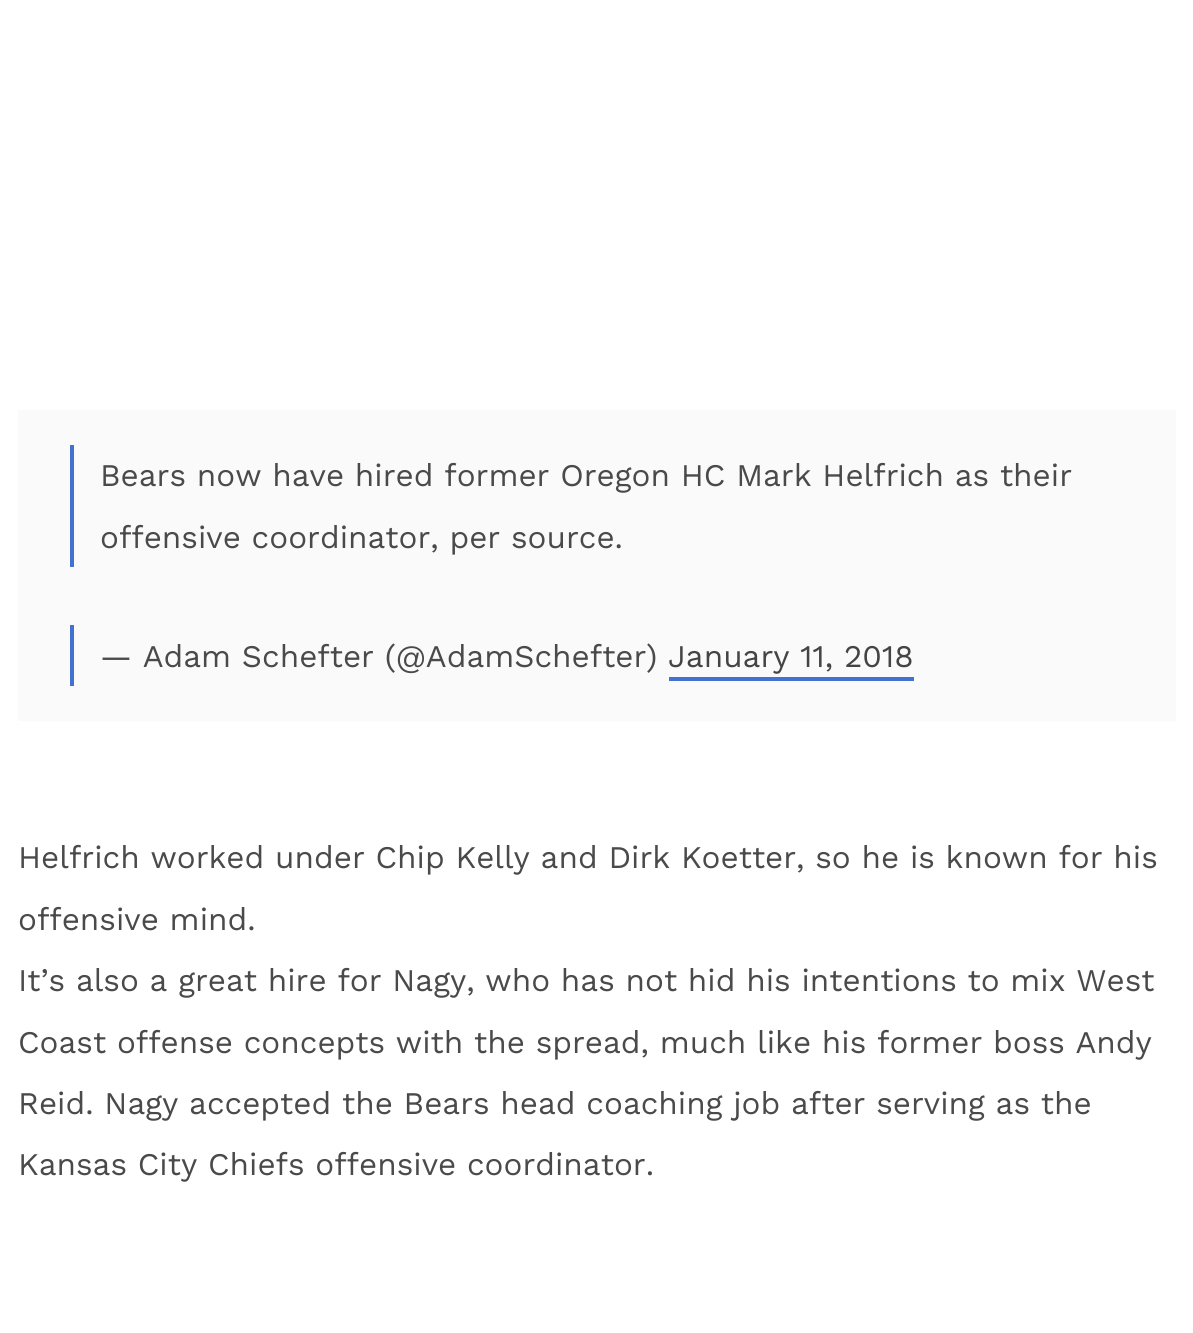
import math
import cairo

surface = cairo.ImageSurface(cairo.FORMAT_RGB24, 1193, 1333)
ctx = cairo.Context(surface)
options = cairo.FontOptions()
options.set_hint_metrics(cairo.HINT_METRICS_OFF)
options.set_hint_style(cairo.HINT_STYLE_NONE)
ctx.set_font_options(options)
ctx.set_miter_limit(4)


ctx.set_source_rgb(1, 1, 1)
ctx.paint()
ctx.set_source_rgb(0.98, 0.98, 0.98)
ctx.rectangle(18, 410, 1158, 311)
ctx.fill()
ctx.set_source_rgb(0.263, 0.443, 0.812)
ctx.rectangle(70, 445, 4, 122)
ctx.fill()
ctx.select_font_face("Work Sans")
ctx.set_font_size(31.5)
ctx.set_source_rgb(0.29, 0.29, 0.29)
ctx.move_to(100, 486)
ctx.show_text("Bears now have hired former Oregon HC Mark Helfrich as their")
ctx.move_to(100, 548)
ctx.show_text("offensive coordinator, per source.")
ctx.set_source_rgb(0.263, 0.443, 0.812)
ctx.rectangle(70, 625, 4, 61)
ctx.fill()
ctx.set_source_rgb(0.29, 0.29, 0.29)
ctx.move_to(100, 667)
ctx.show_text("— Adam Schefter (@AdamSchefter)")
ctx.set_source_rgb(0.267, 0.267, 0.267)
ctx.move_to(668, 667)
ctx.show_text("January 11, 2018")
ctx.set_source_rgb(0.263, 0.443, 0.812)
ctx.rectangle(669, 677, 245, 4)
ctx.fill()
ctx.set_source_rgb(0.29, 0.29, 0.29)
ctx.move_to(18, 868)
ctx.show_text("Helfrich worked under Chip Kelly and Dirk Koetter, so he is known for his")
ctx.move_to(18, 930)
ctx.show_text("offensive mind.")
ctx.move_to(18, 991)
ctx.show_text("It’s also a great hire for Nagy, who has not hid his intentions to mix West")
ctx.move_to(18, 1053)
ctx.show_text("Coast offense concepts with the spread, much like his former boss Andy")
ctx.move_to(18, 1114)
ctx.show_text("Reid. Nagy accepted the Bears head coaching job after serving as the")
ctx.move_to(18, 1175)
ctx.show_text("Kansas City Chiefs offensive coordinator.")
surface.write_to_png("page.png")
